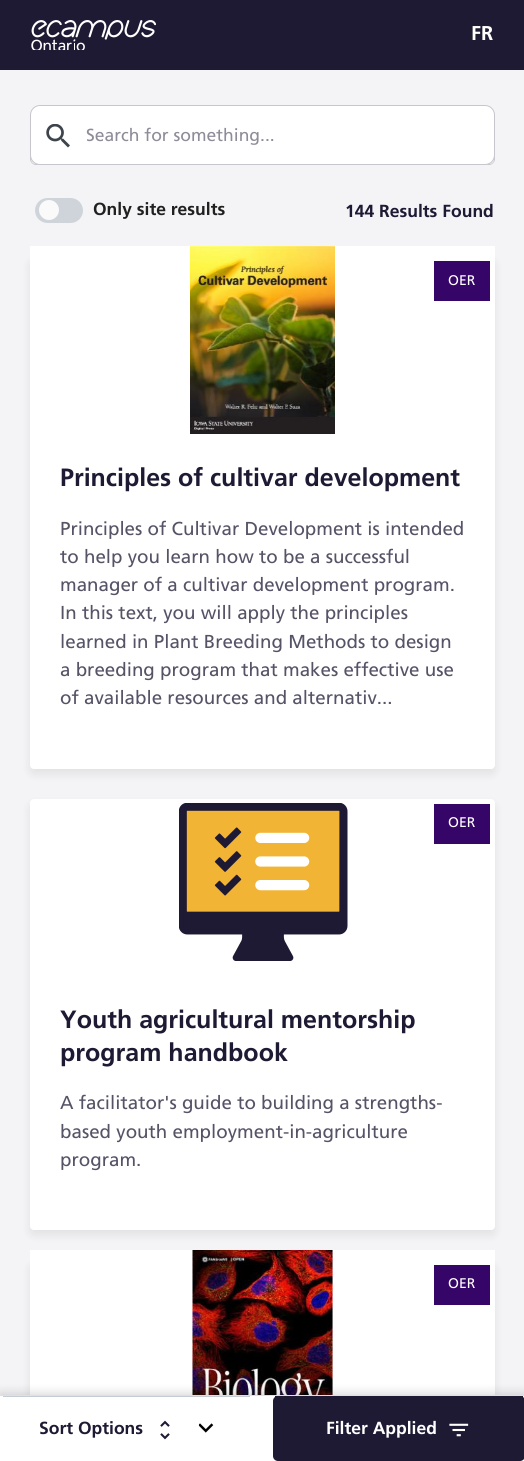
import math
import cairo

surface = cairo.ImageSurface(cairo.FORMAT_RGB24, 524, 1461)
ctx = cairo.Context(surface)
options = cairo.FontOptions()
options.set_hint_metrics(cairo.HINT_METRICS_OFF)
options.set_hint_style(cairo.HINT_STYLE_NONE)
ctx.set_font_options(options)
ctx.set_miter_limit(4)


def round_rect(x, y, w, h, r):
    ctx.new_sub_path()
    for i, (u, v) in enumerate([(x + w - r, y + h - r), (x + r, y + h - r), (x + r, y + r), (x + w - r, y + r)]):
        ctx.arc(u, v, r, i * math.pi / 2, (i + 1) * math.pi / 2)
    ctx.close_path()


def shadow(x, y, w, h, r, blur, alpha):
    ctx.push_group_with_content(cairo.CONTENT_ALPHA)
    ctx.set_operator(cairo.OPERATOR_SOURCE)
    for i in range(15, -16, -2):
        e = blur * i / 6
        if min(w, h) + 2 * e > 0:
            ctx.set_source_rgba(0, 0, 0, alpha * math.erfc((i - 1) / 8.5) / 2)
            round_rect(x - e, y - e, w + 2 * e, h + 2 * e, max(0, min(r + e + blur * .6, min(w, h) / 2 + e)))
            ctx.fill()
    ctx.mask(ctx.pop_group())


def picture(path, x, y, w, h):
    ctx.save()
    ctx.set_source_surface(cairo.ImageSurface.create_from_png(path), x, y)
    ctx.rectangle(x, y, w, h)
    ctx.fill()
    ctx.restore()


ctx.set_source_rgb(0.957, 0.957, 0.961)
ctx.paint()
ctx.set_source_rgb(0.118, 0.102, 0.204)
ctx.rectangle(0, 0, 524, 70)
ctx.fill()
picture("img1.png", 31, 20, 125, 30)
ctx.select_font_face("Frutiger")
ctx.set_font_size(20)
ctx.set_source_rgb(1, 1, 1)
ctx.move_to(471, 40)
ctx.show_text("FR")
ctx.set_source_rgb(0.78, 0.776, 0.8)
ctx.set_fill_rule(cairo.FILL_RULE_EVEN_ODD)
ctx.new_path()
ctx.move_to(36, 110)
ctx.line_to(36, 165)
ctx.curve_to(33, 165, 30, 162, 30, 159)
ctx.line_to(30, 116)
ctx.curve_to(30, 113, 33, 110, 36, 110)
ctx.close_path()
ctx.move_to(36, 111)
ctx.line_to(36, 164)
ctx.curve_to(33, 164, 31, 162, 31, 159)
ctx.line_to(31, 116)
ctx.curve_to(31, 113, 33, 111, 36, 111)
ctx.close_path()
ctx.fill()
ctx.new_path()
ctx.move_to(36, 110)
ctx.line_to(489, 110)
ctx.curve_to(492, 110, 495, 113, 495, 116)
ctx.line_to(495, 159)
ctx.curve_to(495, 162, 492, 165, 489, 165)
ctx.line_to(36, 165)
ctx.close_path()
ctx.move_to(36, 111)
ctx.line_to(489, 111)
ctx.curve_to(492, 111, 494, 113, 494, 116)
ctx.line_to(494, 159)
ctx.curve_to(494, 162, 492, 164, 489, 164)
ctx.line_to(36, 164)
ctx.close_path()
ctx.fill()
ctx.set_source_rgb(1, 1, 1)
round_rect(30.5, 105.5, 464, 59, 9.5)
ctx.fill_preserve()
ctx.set_source_rgb(0.78, 0.776, 0.8)
ctx.set_line_width(1)
ctx.stroke()
picture("img2.png", 46, 124, 24, 24)
ctx.select_font_face("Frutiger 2")
ctx.set_font_size(17.5)
ctx.set_source_rgb(0.557, 0.549, 0.6)
ctx.move_to(86, 141)
ctx.show_text("Search for something...")
ctx.set_source_rgb(0.808, 0.831, 0.855)
round_rect(35, 198, 48, 25, 12.5)
ctx.fill()
ctx.set_source_rgb(0.98, 0.98, 0.98)
ctx.arc(49, 210, 10, 0, 2 * math.pi)
ctx.fill()
ctx.select_font_face("Frutiger")
ctx.set_source_rgb(0.125, 0.125, 0.125)
ctx.move_to(93, 215)
ctx.show_text("Only site results")
ctx.set_source_rgb(0.118, 0.102, 0.204)
ctx.move_to(345, 217)
ctx.show_text("144 Results Found")
ctx.set_source_rgb(0, 0, 0)
shadow(30, 261, 465, 513, 4, 5, 0.08)
ctx.set_source_rgb(1, 1, 1)
round_rect(30, 256, 465, 513, 4)
ctx.fill()
ctx.rectangle(30, 246, 465, 13)
ctx.fill()
picture("img3.png", 190, 246, 145, 188)
ctx.set_source_rgb(0.212, 0.02, 0.408)
ctx.rectangle(434, 261, 56, 40)
ctx.fill()
ctx.select_font_face("Frutiger 2")
ctx.set_font_size(14)
ctx.set_source_rgb(1, 1, 1)
ctx.move_to(448, 285)
ctx.show_text("OER")
ctx.select_font_face("Frutiger")
ctx.set_font_size(25)
ctx.set_source_rgb(0.118, 0.102, 0.204)
ctx.move_to(60, 486)
ctx.show_text("Principles of cultivar development")
ctx.select_font_face("Frutiger 2")
ctx.set_font_size(18.75)
ctx.set_source_rgb(0.337, 0.325, 0.404)
ctx.move_to(60, 535)
ctx.show_text("Principles of Cultivar Development is intended")
ctx.move_to(60, 563)
ctx.show_text("to help you learn how to be a successful")
ctx.move_to(60, 591)
ctx.show_text("manager of a cultivar development program.")
ctx.move_to(60, 619)
ctx.show_text("In this text, you will apply the principles")
ctx.move_to(60, 648)
ctx.show_text("learned in Plant Breeding Methods to design")
ctx.move_to(60, 676)
ctx.show_text("a breeding program that makes effective use")
ctx.move_to(60, 704)
ctx.show_text("of available resources and alternativ...")
ctx.set_source_rgb(0, 0, 0)
shadow(30, 804, 465, 431, 4, 5, 0.08)
ctx.set_source_rgb(1, 1, 1)
round_rect(30, 799, 465, 431, 4)
ctx.fill()
picture("img4.png", 179, 803, 169, 158)
ctx.set_source_rgb(0.212, 0.02, 0.408)
ctx.rectangle(434, 804, 56, 40)
ctx.fill()
ctx.set_font_size(14)
ctx.set_source_rgb(1, 1, 1)
ctx.move_to(448, 827)
ctx.show_text("OER")
ctx.select_font_face("Frutiger")
ctx.set_font_size(25)
ctx.set_source_rgb(0.118, 0.102, 0.204)
ctx.move_to(60, 1028)
ctx.show_text("Youth agricultural mentorship")
ctx.move_to(60, 1061)
ctx.show_text("program handbook")
ctx.select_font_face("Frutiger 2")
ctx.set_font_size(18.75)
ctx.set_source_rgb(0.337, 0.325, 0.404)
ctx.move_to(60, 1109)
ctx.show_text("A facilitator's guide to building a strengths-")
ctx.move_to(60, 1138)
ctx.show_text("based youth employment-in-agriculture")
ctx.move_to(60, 1166)
ctx.show_text("program.")
ctx.set_source_rgb(0, 0, 0)
shadow(30, 1265, 465, 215, 4, 5, 0.08)
ctx.set_source_rgb(1, 1, 1)
ctx.rectangle(30, 1250, 465, 145)
ctx.fill()
picture("img5.png", 192, 1250, 141, 145)
ctx.set_source_rgb(0.212, 0.02, 0.408)
ctx.rectangle(434, 1265, 56, 40)
ctx.fill()
ctx.set_font_size(14)
ctx.set_source_rgb(1, 1, 1)
ctx.move_to(448, 1288)
ctx.show_text("OER")
ctx.set_source_rgb(0, 0, 0)
shadow(0, 1393, 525, 66, 0, 5, 0.15)
ctx.set_source_rgb(1, 1, 1)
ctx.rectangle(0, 1396, 524, 65)
ctx.fill()
ctx.set_source_rgb(0.878, 0.878, 0.878)
ctx.rectangle(0, 1395, 524, 1)
ctx.fill()
ctx.set_source_rgb(0.773, 0.8, 0.827)
ctx.rectangle(3, 1396, 247, 1)
ctx.fill()
ctx.select_font_face("Frutiger")
ctx.set_font_size(17.5)
ctx.set_source_rgb(0.118, 0.102, 0.204)
ctx.move_to(39, 1434)
ctx.show_text("Sort Options")
picture("img6.png", 160, 1420, 10, 20)
picture("img7.png", 198, 1423, 16, 10)
round_rect(273, 1396, 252, 65, 5)
ctx.fill()
ctx.rectangle(275, 1396, 248, 1)
ctx.fill()
ctx.set_source_rgb(1, 1, 1)
ctx.move_to(326, 1434)
ctx.show_text("Filter Applied")
picture("img8.png", 449, 1423, 20, 14)
surface.write_to_png("page.png")
